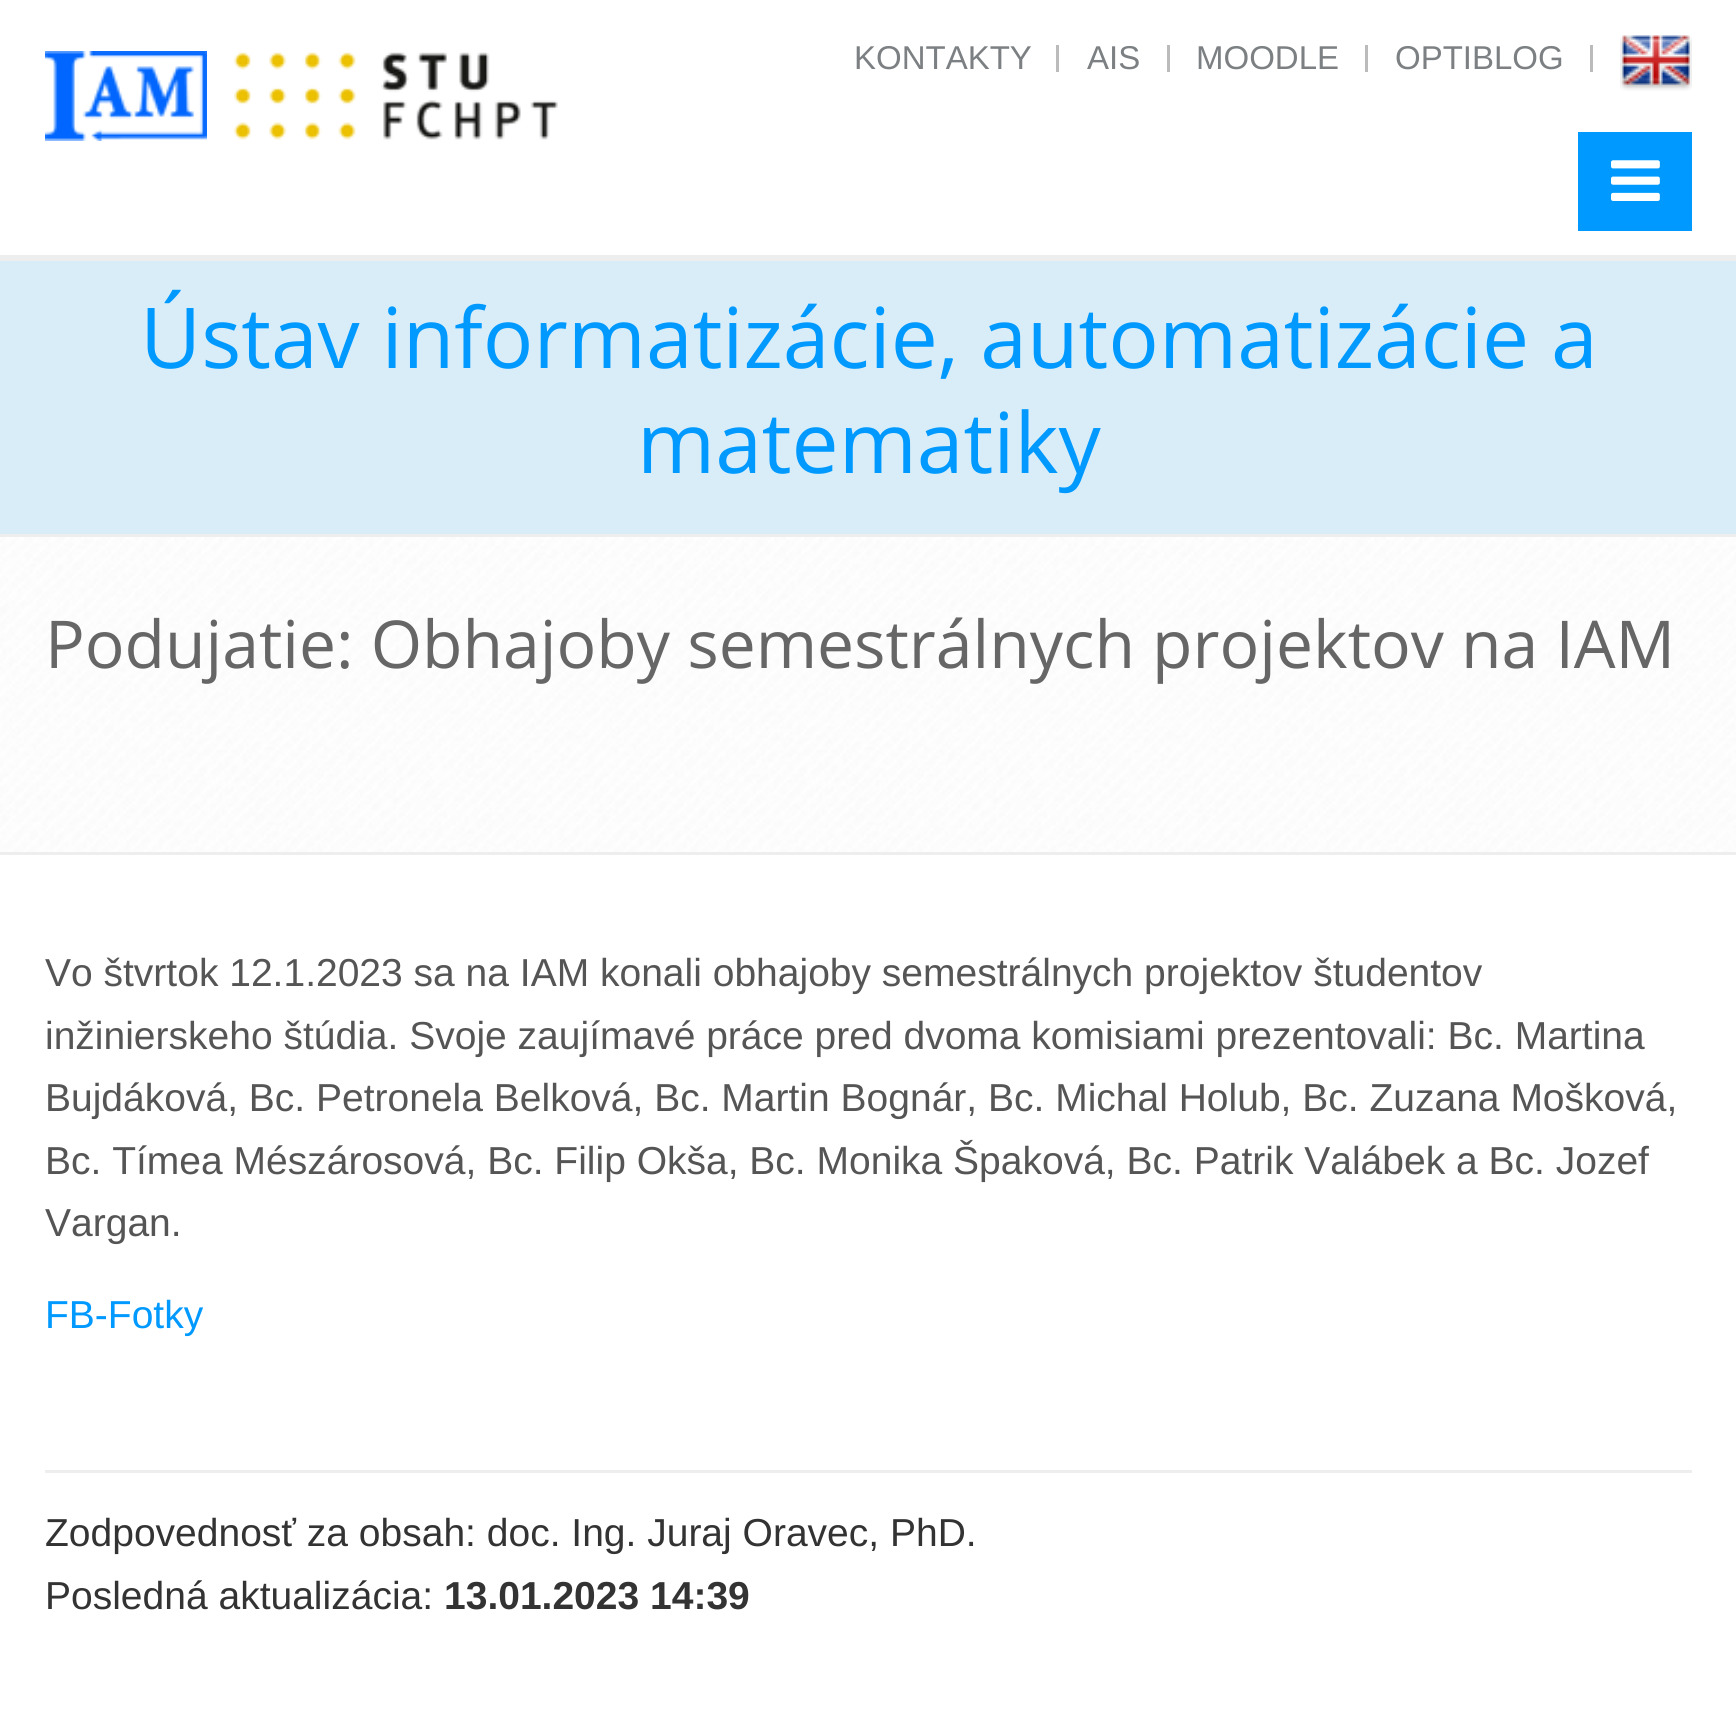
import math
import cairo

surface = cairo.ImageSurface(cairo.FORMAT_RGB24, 1736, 1732)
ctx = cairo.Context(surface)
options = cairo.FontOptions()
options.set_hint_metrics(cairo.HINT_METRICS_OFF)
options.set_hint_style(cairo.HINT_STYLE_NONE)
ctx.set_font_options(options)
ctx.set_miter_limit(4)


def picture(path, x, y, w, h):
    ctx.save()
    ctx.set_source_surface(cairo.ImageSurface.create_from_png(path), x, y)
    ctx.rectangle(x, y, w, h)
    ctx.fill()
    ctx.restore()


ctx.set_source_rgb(1, 1, 1)
ctx.paint()
ctx.set_source_rgb(0.933, 0.933, 0.933)
ctx.rectangle(0, 255, 1736, 6)
ctx.fill()
picture("img1.png", 45, 51, 162, 90)
picture("img2.png", 234, 52, 324, 88)
ctx.select_font_face("Liberation Sans")
ctx.set_font_size(33)
ctx.set_source_rgb(0.486, 0.502, 0.51)
ctx.move_to(854, 69)
ctx.show_text("KONTAKTY")
ctx.set_source_rgb(0.733, 0.733, 0.733)
ctx.rectangle(1056, 45, 3, 27)
ctx.fill()
ctx.set_source_rgb(0.486, 0.502, 0.51)
ctx.move_to(1087, 69)
ctx.show_text("AIS")
ctx.set_source_rgb(0.733, 0.733, 0.733)
ctx.rectangle(1167, 45, 3, 27)
ctx.fill()
ctx.set_source_rgb(0.486, 0.502, 0.51)
ctx.move_to(1196, 69)
ctx.show_text("MOODLE")
ctx.set_source_rgb(0.733, 0.733, 0.733)
ctx.rectangle(1365, 45, 3, 27)
ctx.fill()
ctx.set_source_rgb(0.486, 0.502, 0.51)
ctx.move_to(1395, 69)
ctx.show_text("OPTIBLOG")
ctx.set_source_rgb(0.733, 0.733, 0.733)
ctx.rectangle(1590, 45, 3, 27)
ctx.fill()
picture("img3.png", 1620, 35, 72, 56)
ctx.set_source_rgb(0, 0.6, 1)
ctx.rectangle(1578, 132, 114, 99)
ctx.fill()
picture("img4.png", 1611, 160, 49, 41)
ctx.set_source_rgb(0.851, 0.929, 0.969)
ctx.rectangle(0, 261, 1736, 273)
ctx.fill()
ctx.set_source_rgb(0.933, 0.933, 0.933)
ctx.rectangle(0, 534, 1736, 3)
ctx.fill()
ctx.select_font_face("Open Sans")
ctx.set_font_size(84)
ctx.set_source_rgb(0, 0.6, 1)
ctx.move_to(140, 368)
ctx.show_text("Ústav informatizácie, automatizácie a")
ctx.move_to(637, 473)
ctx.show_text("matematiky")
picture("img5.png", 0, 537, 1736, 315)
ctx.set_source_rgb(0.933, 0.933, 0.933)
ctx.rectangle(0, 852, 1736, 3)
ctx.fill()
ctx.set_font_size(66)
ctx.set_source_rgb(0.4, 0.4, 0.4)
ctx.move_to(45, 668)
ctx.show_text("Podujatie: Obhajoby semestrálnych projektov na IAM")
ctx.select_font_face("Liberation Sans")
ctx.set_font_size(39)
ctx.set_source_rgb(0.333, 0.333, 0.333)
ctx.move_to(45, 986)
ctx.show_text("Vo štvrtok 12.1.2023 sa na IAM konali obhajoby semestrálnych projektov študentov")
ctx.move_to(45, 1049)
ctx.show_text("inžinierskeho štúdia. Svoje zaujímavé práce pred dvoma komisiami prezentovali: Bc. Martina")
ctx.move_to(45, 1111)
ctx.show_text("Bujdáková, Bc. Petronela Belková, Bc. Martin Bognár, Bc. Michal Holub, Bc. Zuzana Mošková,")
ctx.move_to(45, 1174)
ctx.show_text("Bc. Tímea Mészárosová, Bc. Filip Okša, Bc. Monika Špaková, Bc. Patrik Valábek a Bc. Jozef")
ctx.move_to(45, 1236)
ctx.show_text("Vargan.")
ctx.set_source_rgb(0, 0.6, 1)
ctx.move_to(45, 1328)
ctx.show_text("FB-Fotky")
ctx.set_source_rgb(0.933, 0.933, 0.933)
ctx.rectangle(45, 1470, 1647, 3)
ctx.fill()
ctx.set_source_rgb(0.2, 0.2, 0.2)
ctx.move_to(45, 1546)
ctx.show_text("Zodpovednosť za obsah: doc. Ing. Juraj Oravec, PhD.")
ctx.move_to(45, 1609)
ctx.show_text("Posledná aktualizácia:")
ctx.select_font_face("Liberation Sans", cairo.FONT_SLANT_NORMAL, cairo.FONT_WEIGHT_BOLD)
ctx.move_to(444, 1609)
ctx.show_text("13.01.2023 14:39")
surface.write_to_png("page.png")
